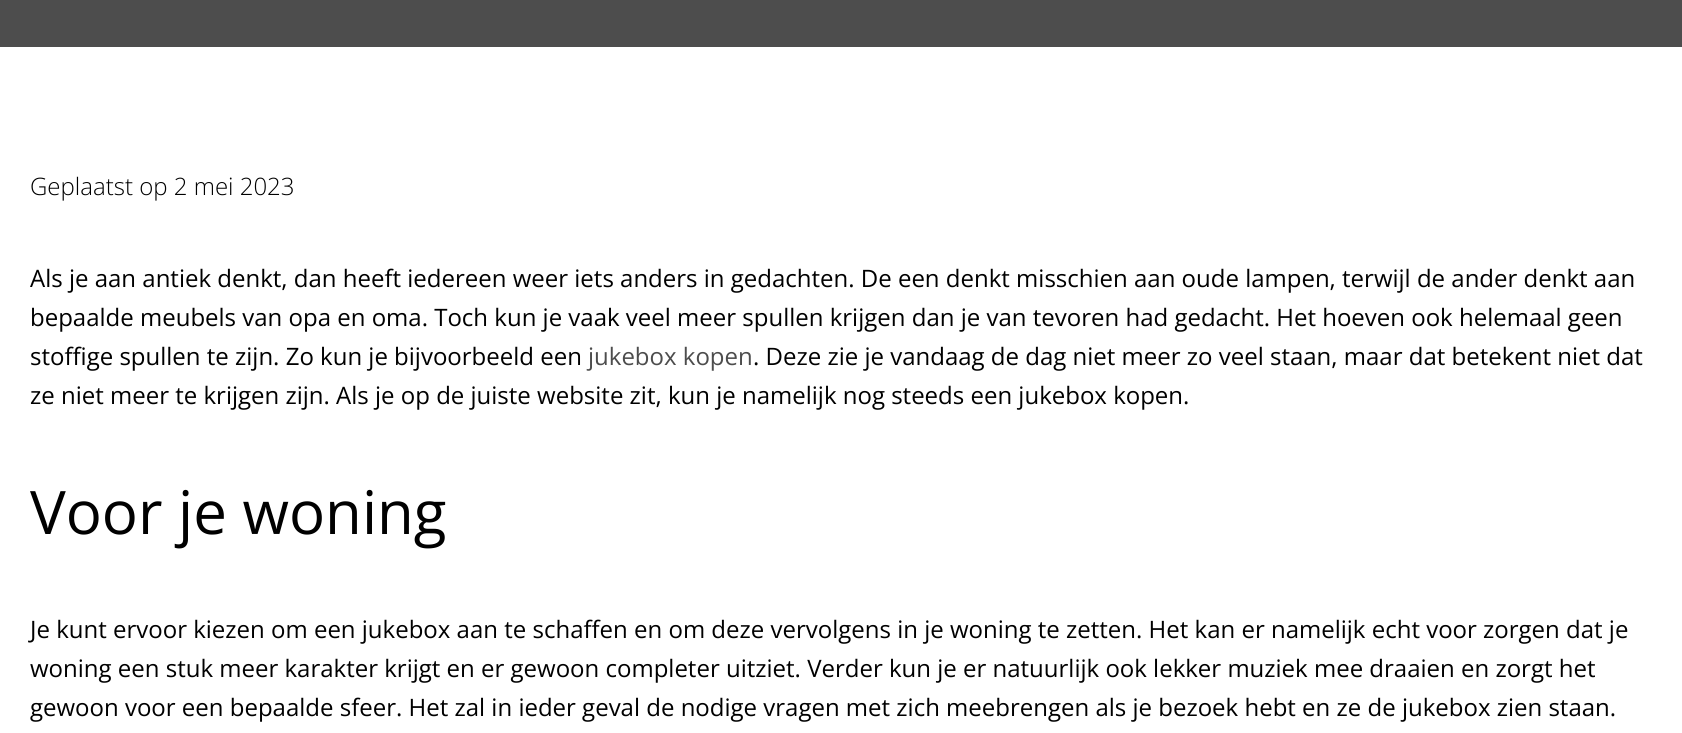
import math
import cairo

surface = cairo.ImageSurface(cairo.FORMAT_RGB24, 1682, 733)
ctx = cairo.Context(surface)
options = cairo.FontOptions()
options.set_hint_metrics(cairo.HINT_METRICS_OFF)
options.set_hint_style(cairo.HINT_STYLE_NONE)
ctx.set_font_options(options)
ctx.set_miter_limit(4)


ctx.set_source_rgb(1, 1, 1)
ctx.paint()
ctx.set_source_rgb(0.302, 0.302, 0.302)
ctx.rectangle(0, 0, 1682, 47)
ctx.fill()
ctx.select_font_face("Open Sans Light")
ctx.set_font_size(24)
ctx.set_source_rgb(0, 0, 0)
ctx.move_to(30, 195)
ctx.show_text("Geplaatst op 2 mei 2023")
ctx.select_font_face("Open Sans")
ctx.move_to(30, 287)
ctx.show_text("Als je aan antiek denkt, dan heeft iedereen weer iets anders in gedachten. De een denkt misschien aan oude lampen, terwijl de ander denkt aan")
ctx.move_to(30, 326)
ctx.show_text("bepaalde meubels van opa en oma. Toch kun je vaak veel meer spullen krijgen dan je van tevoren had gedacht. Het hoeven ook helemaal geen")
ctx.move_to(30, 365)
ctx.show_text("stoffige spullen te zijn. Zo kun je bijvoorbeeld een")
ctx.set_source_rgb(0.302, 0.302, 0.302)
ctx.move_to(588, 365)
ctx.show_text("jukebox kopen")
ctx.set_source_rgb(0, 0, 0)
ctx.move_to(753, 365)
ctx.show_text(". Deze zie je vandaag de dag niet meer zo veel staan, maar dat betekent niet dat")
ctx.move_to(30, 404)
ctx.show_text("ze niet meer te krijgen zijn. Als je op de juiste website zit, kun je namelijk nog steeds een jukebox kopen.")
ctx.set_font_size(60)
ctx.move_to(30, 534)
ctx.show_text("Voor je woning")
ctx.set_font_size(24)
ctx.move_to(30, 638)
ctx.show_text("Je kunt ervoor kiezen om een jukebox aan te schaffen en om deze vervolgens in je woning te zetten. Het kan er namelijk echt voor zorgen dat je")
ctx.move_to(30, 677)
ctx.show_text("woning een stuk meer karakter krijgt en er gewoon completer uitziet. Verder kun je er natuurlijk ook lekker muziek mee draaien en zorgt het")
ctx.move_to(30, 716)
ctx.show_text("gewoon voor een bepaalde sfeer. Het zal in ieder geval de nodige vragen met zich meebrengen als je bezoek hebt en ze de jukebox zien staan.")
surface.write_to_png("page.png")
